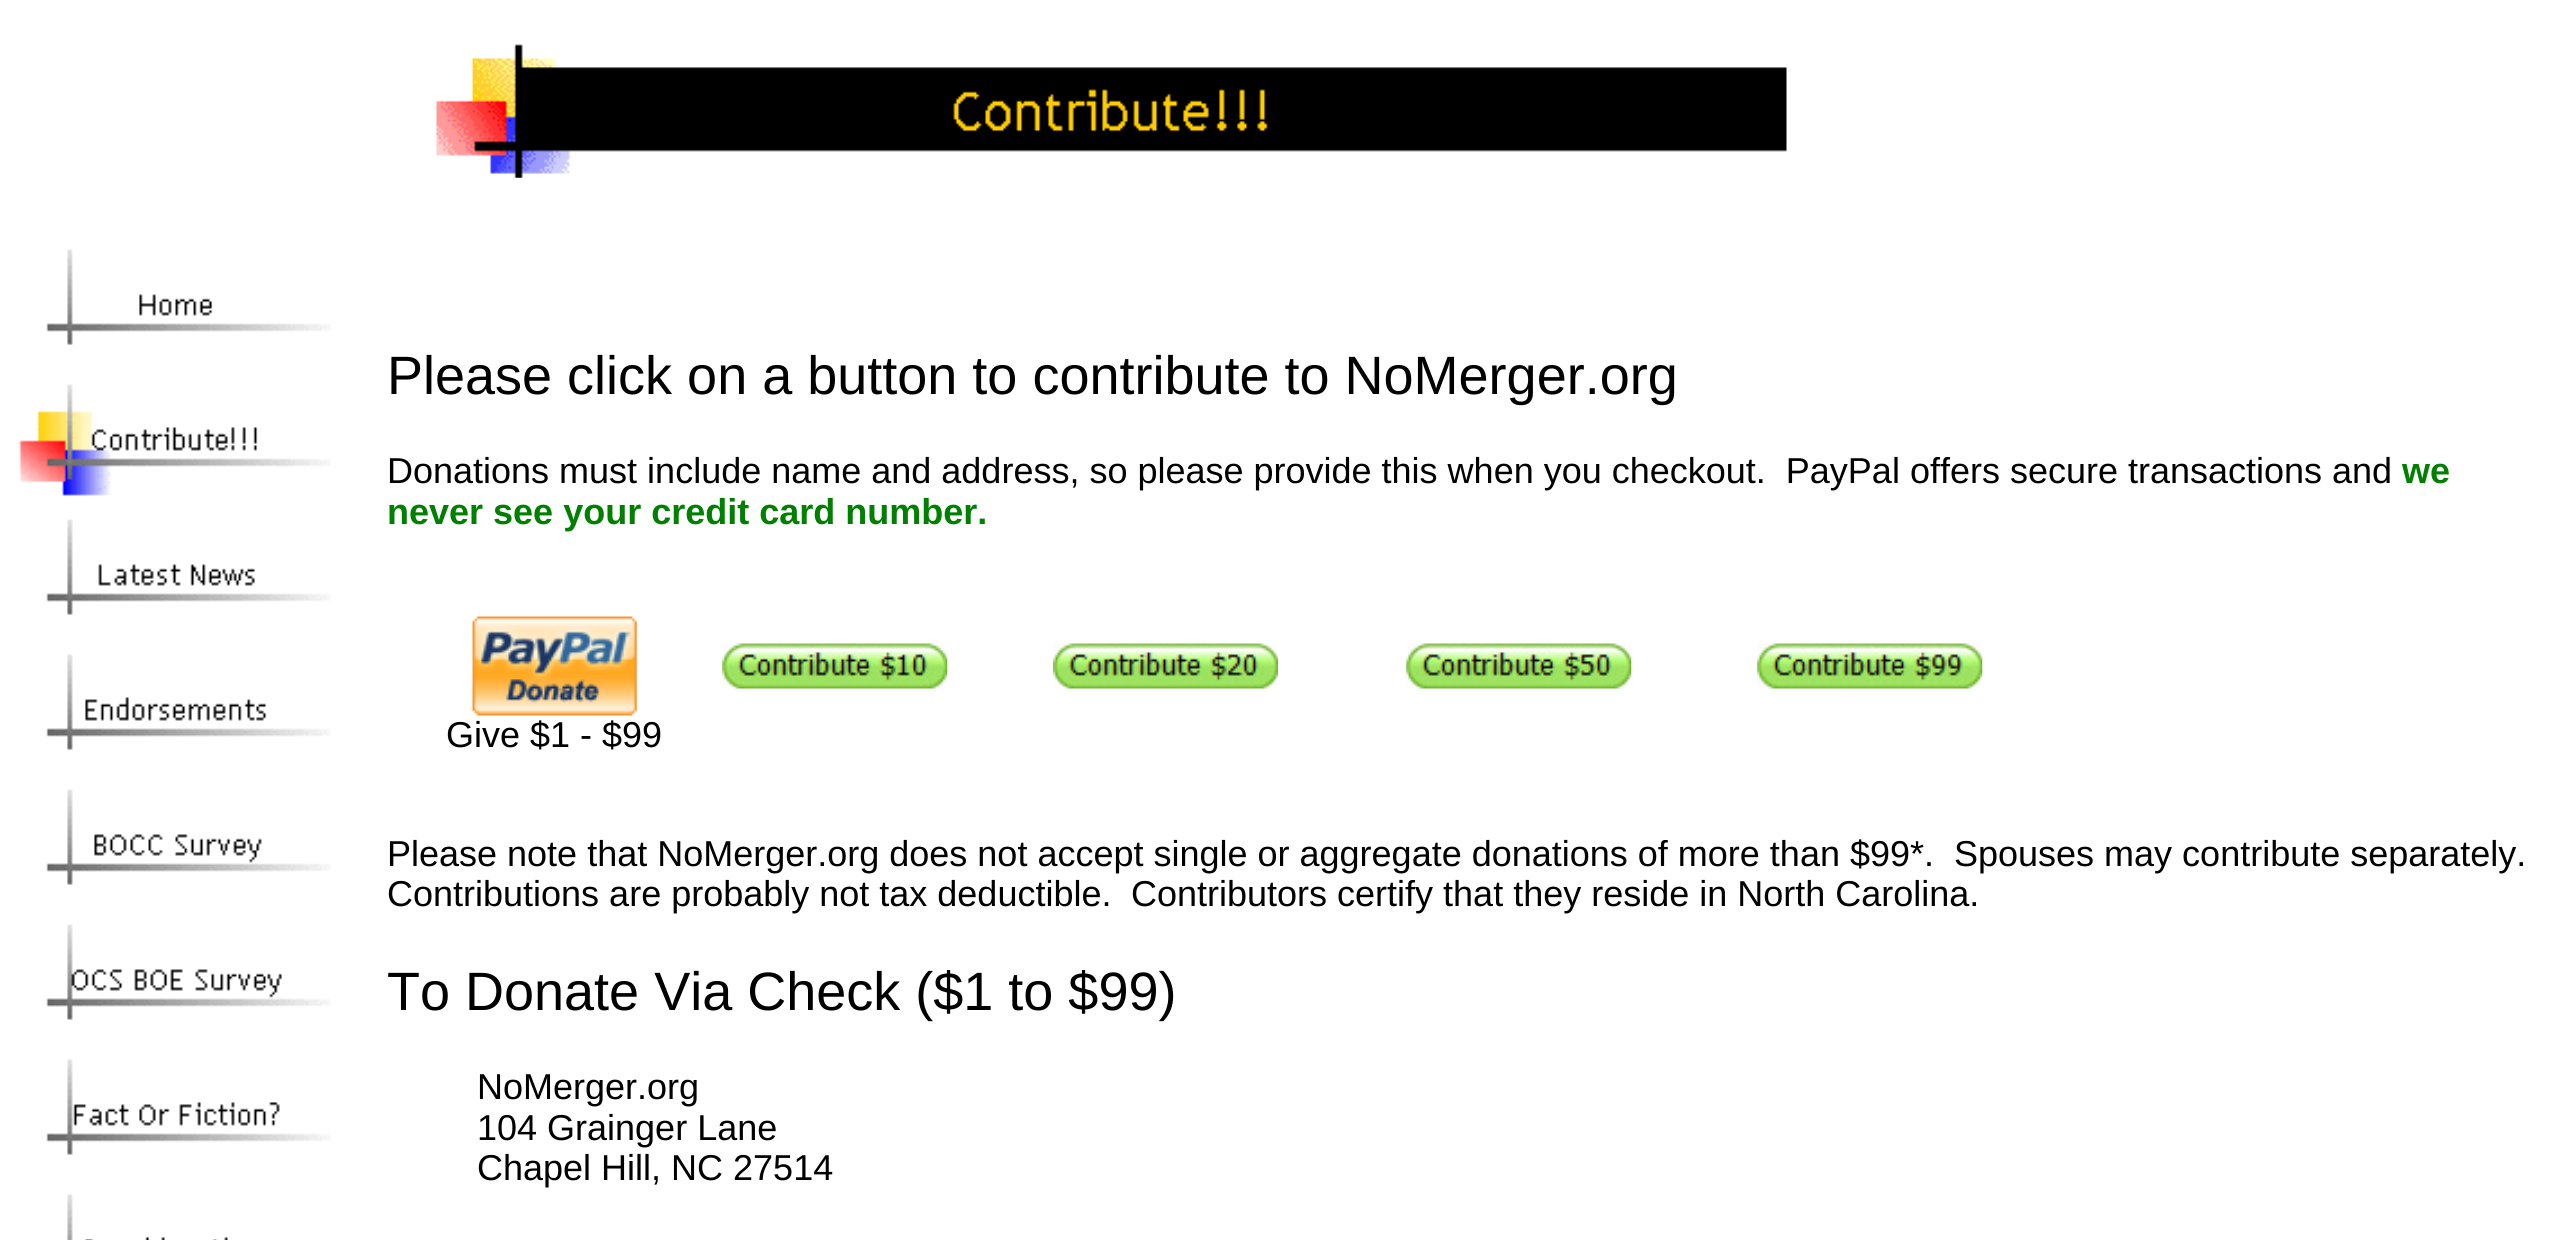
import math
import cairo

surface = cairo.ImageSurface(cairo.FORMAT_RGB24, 2557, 1240)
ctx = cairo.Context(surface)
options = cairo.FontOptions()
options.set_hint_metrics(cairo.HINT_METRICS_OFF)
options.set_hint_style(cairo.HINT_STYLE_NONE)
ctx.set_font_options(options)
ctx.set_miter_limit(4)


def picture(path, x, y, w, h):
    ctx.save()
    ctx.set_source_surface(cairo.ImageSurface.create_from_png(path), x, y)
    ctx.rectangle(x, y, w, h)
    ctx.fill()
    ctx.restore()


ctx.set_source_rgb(1, 1, 1)
ctx.paint()
picture("img1.png", 436, 44, 1351, 134)
picture("img2.png", 46, 249, 285, 96)
picture("img3.png", 19, 384, 312, 112)
picture("img4.png", 46, 519, 285, 96)
picture("img5.png", 46, 654, 285, 96)
picture("img6.png", 46, 789, 285, 96)
picture("img7.png", 46, 924, 285, 96)
picture("img8.png", 46, 1059, 285, 96)
picture("img9.png", 67, 1194, 161, 46)
ctx.select_font_face("Liberation Sans")
ctx.set_font_size(54)
ctx.set_source_rgb(0, 0, 0)
ctx.move_to(387, 394)
ctx.show_text("Please click on a button to contribute to NoMerger.org")
ctx.set_font_size(36)
ctx.move_to(387, 483)
ctx.show_text("Donations must include name and address, so please provide this when you checkout.  PayPal offers secure transactions and")
ctx.select_font_face("Liberation Sans", cairo.FONT_SLANT_NORMAL, cairo.FONT_WEIGHT_BOLD)
ctx.set_source_rgb(0, 0.502, 0)
ctx.move_to(2402, 483)
ctx.show_text("we")
ctx.move_to(387, 524)
ctx.show_text("never see your credit card number.")
picture("img10.png", 722, 643, 226, 46)
picture("img11.png", 1053, 643, 225, 46)
picture("img12.png", 1406, 643, 226, 46)
picture("img13.png", 1757, 643, 226, 46)
picture("img14.png", 472, 616, 165, 100)
ctx.select_font_face("Liberation Sans")
ctx.set_source_rgb(0, 0, 0)
ctx.move_to(446, 747)
ctx.show_text("Give $1 - $99")
ctx.move_to(387, 866)
ctx.show_text("Please note that NoMerger.org does not accept single or aggregate donations of more than $99*.  Spouses may contribute separately.")
ctx.move_to(387, 906)
ctx.show_text("Contributions are probably not tax deductible.")
ctx.move_to(1131, 906)
ctx.show_text("Contributors certify that they reside in North Carolina.")
ctx.set_font_size(54)
ctx.move_to(387, 1010)
ctx.show_text("To Donate Via Check ($1 to $99)")
ctx.set_font_size(36)
ctx.move_to(477, 1099)
ctx.show_text("NoMerger.org")
ctx.move_to(477, 1140)
ctx.show_text("104 Grainger Lane")
ctx.move_to(477, 1180)
ctx.show_text("Chapel Hill, NC 27514")
surface.write_to_png("page.png")
